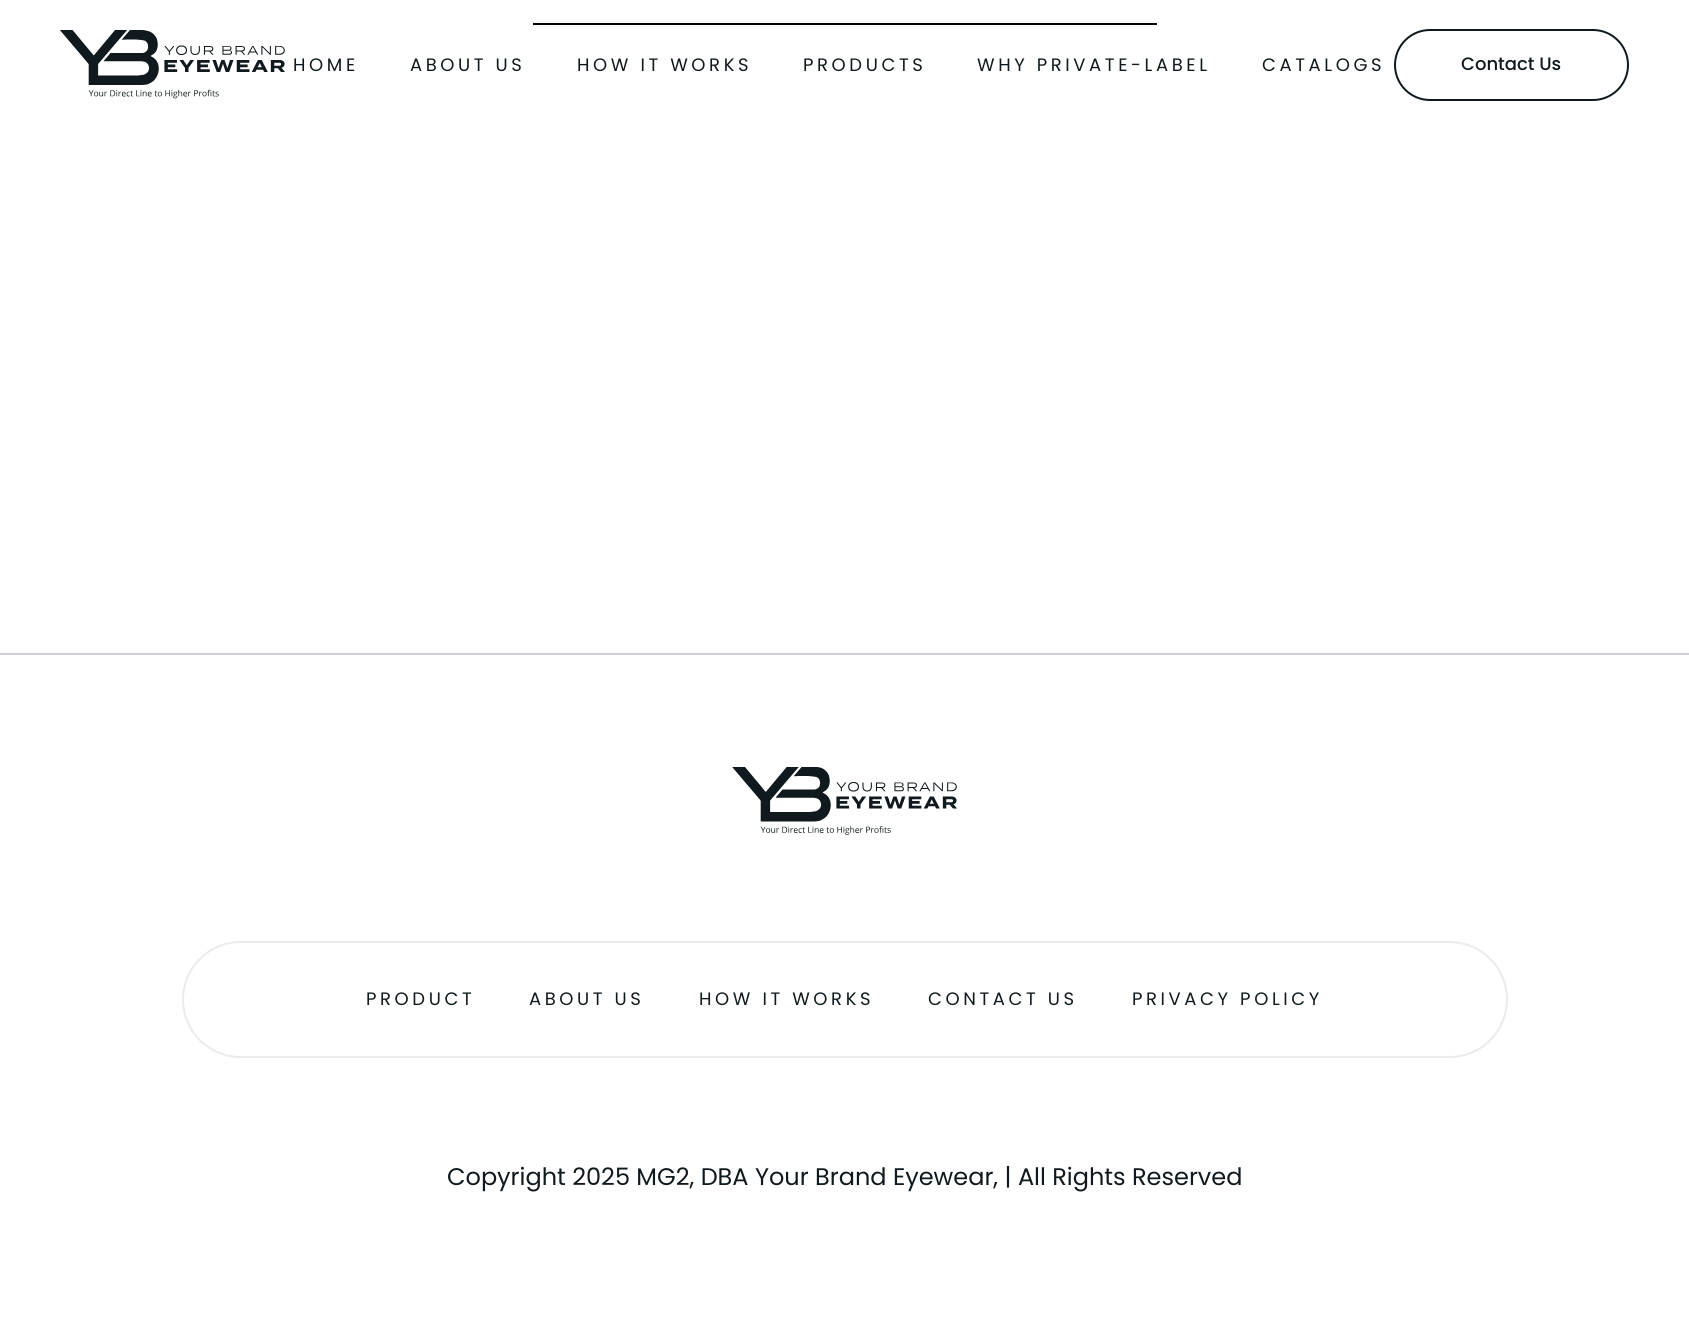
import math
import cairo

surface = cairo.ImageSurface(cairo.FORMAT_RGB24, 1689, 1341)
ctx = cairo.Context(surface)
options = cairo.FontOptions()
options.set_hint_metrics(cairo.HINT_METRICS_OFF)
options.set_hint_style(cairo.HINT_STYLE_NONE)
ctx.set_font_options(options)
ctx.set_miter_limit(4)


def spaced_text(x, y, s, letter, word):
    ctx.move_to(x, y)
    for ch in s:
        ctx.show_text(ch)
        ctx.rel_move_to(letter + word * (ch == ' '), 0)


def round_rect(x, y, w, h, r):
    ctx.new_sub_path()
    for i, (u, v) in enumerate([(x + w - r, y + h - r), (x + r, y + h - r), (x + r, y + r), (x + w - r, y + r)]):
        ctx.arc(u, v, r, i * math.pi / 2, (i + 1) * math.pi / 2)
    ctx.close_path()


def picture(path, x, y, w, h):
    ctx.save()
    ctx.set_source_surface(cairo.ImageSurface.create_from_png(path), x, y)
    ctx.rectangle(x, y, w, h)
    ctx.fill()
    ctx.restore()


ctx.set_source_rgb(1, 1, 1)
ctx.paint()
ctx.set_source_rgb(0, 0, 0)
ctx.rectangle(533, 23, 624, 2)
ctx.fill()
picture("img1.png", 60, 30, 225, 69)
ctx.select_font_face("Poppins")
ctx.set_font_size(18)
ctx.set_source_rgb(0.063, 0.098, 0.114)
spaced_text(293, 71, "HOME", 3.6, 0)
spaced_text(410, 71, "ABOUT US", 3.6, 0)
spaced_text(577, 71, "HOW IT WORKS", 3.6, 0)
spaced_text(803, 71, "PRODUCTS", 3.6, 0)
spaced_text(977, 71, "WHY PRIVATE-LABEL", 3.6, 0)
spaced_text(1262, 71, "CATALOGS", 3.6, 0)
round_rect(1395, 30, 233, 70, 35)
ctx.stroke()
ctx.select_font_face("Poppins Medium")
ctx.move_to(1461, 70)
ctx.show_text("Contact Us")
ctx.set_source_rgb(0.816, 0.816, 0.847)
ctx.rectangle(0, 653, 1689, 2)
ctx.fill()
picture("img2.png", 732, 767, 225, 68)
round_rect(183, 942, 1324, 115, 57.5)
ctx.set_source_rgb(0.918, 0.918, 0.918)
ctx.stroke()
ctx.select_font_face("Poppins")
ctx.set_source_rgb(0.063, 0.098, 0.114)
spaced_text(366, 1005, "PRODUCT", 3.6, 0)
spaced_text(529, 1005, "ABOUT US", 3.6, 0)
spaced_text(699, 1005, "HOW IT WORKS", 3.6, 0)
spaced_text(928, 1005, "CONTACT US", 3.6, 0)
spaced_text(1132, 1005, "PRIVACY POLICY", 3.6, 0)
ctx.set_font_size(24)
ctx.move_to(447, 1185)
ctx.show_text("Copyright 2025 MG2, DBA Your Brand Eyewear, | All Rights Reserved")
surface.write_to_png("page.png")
